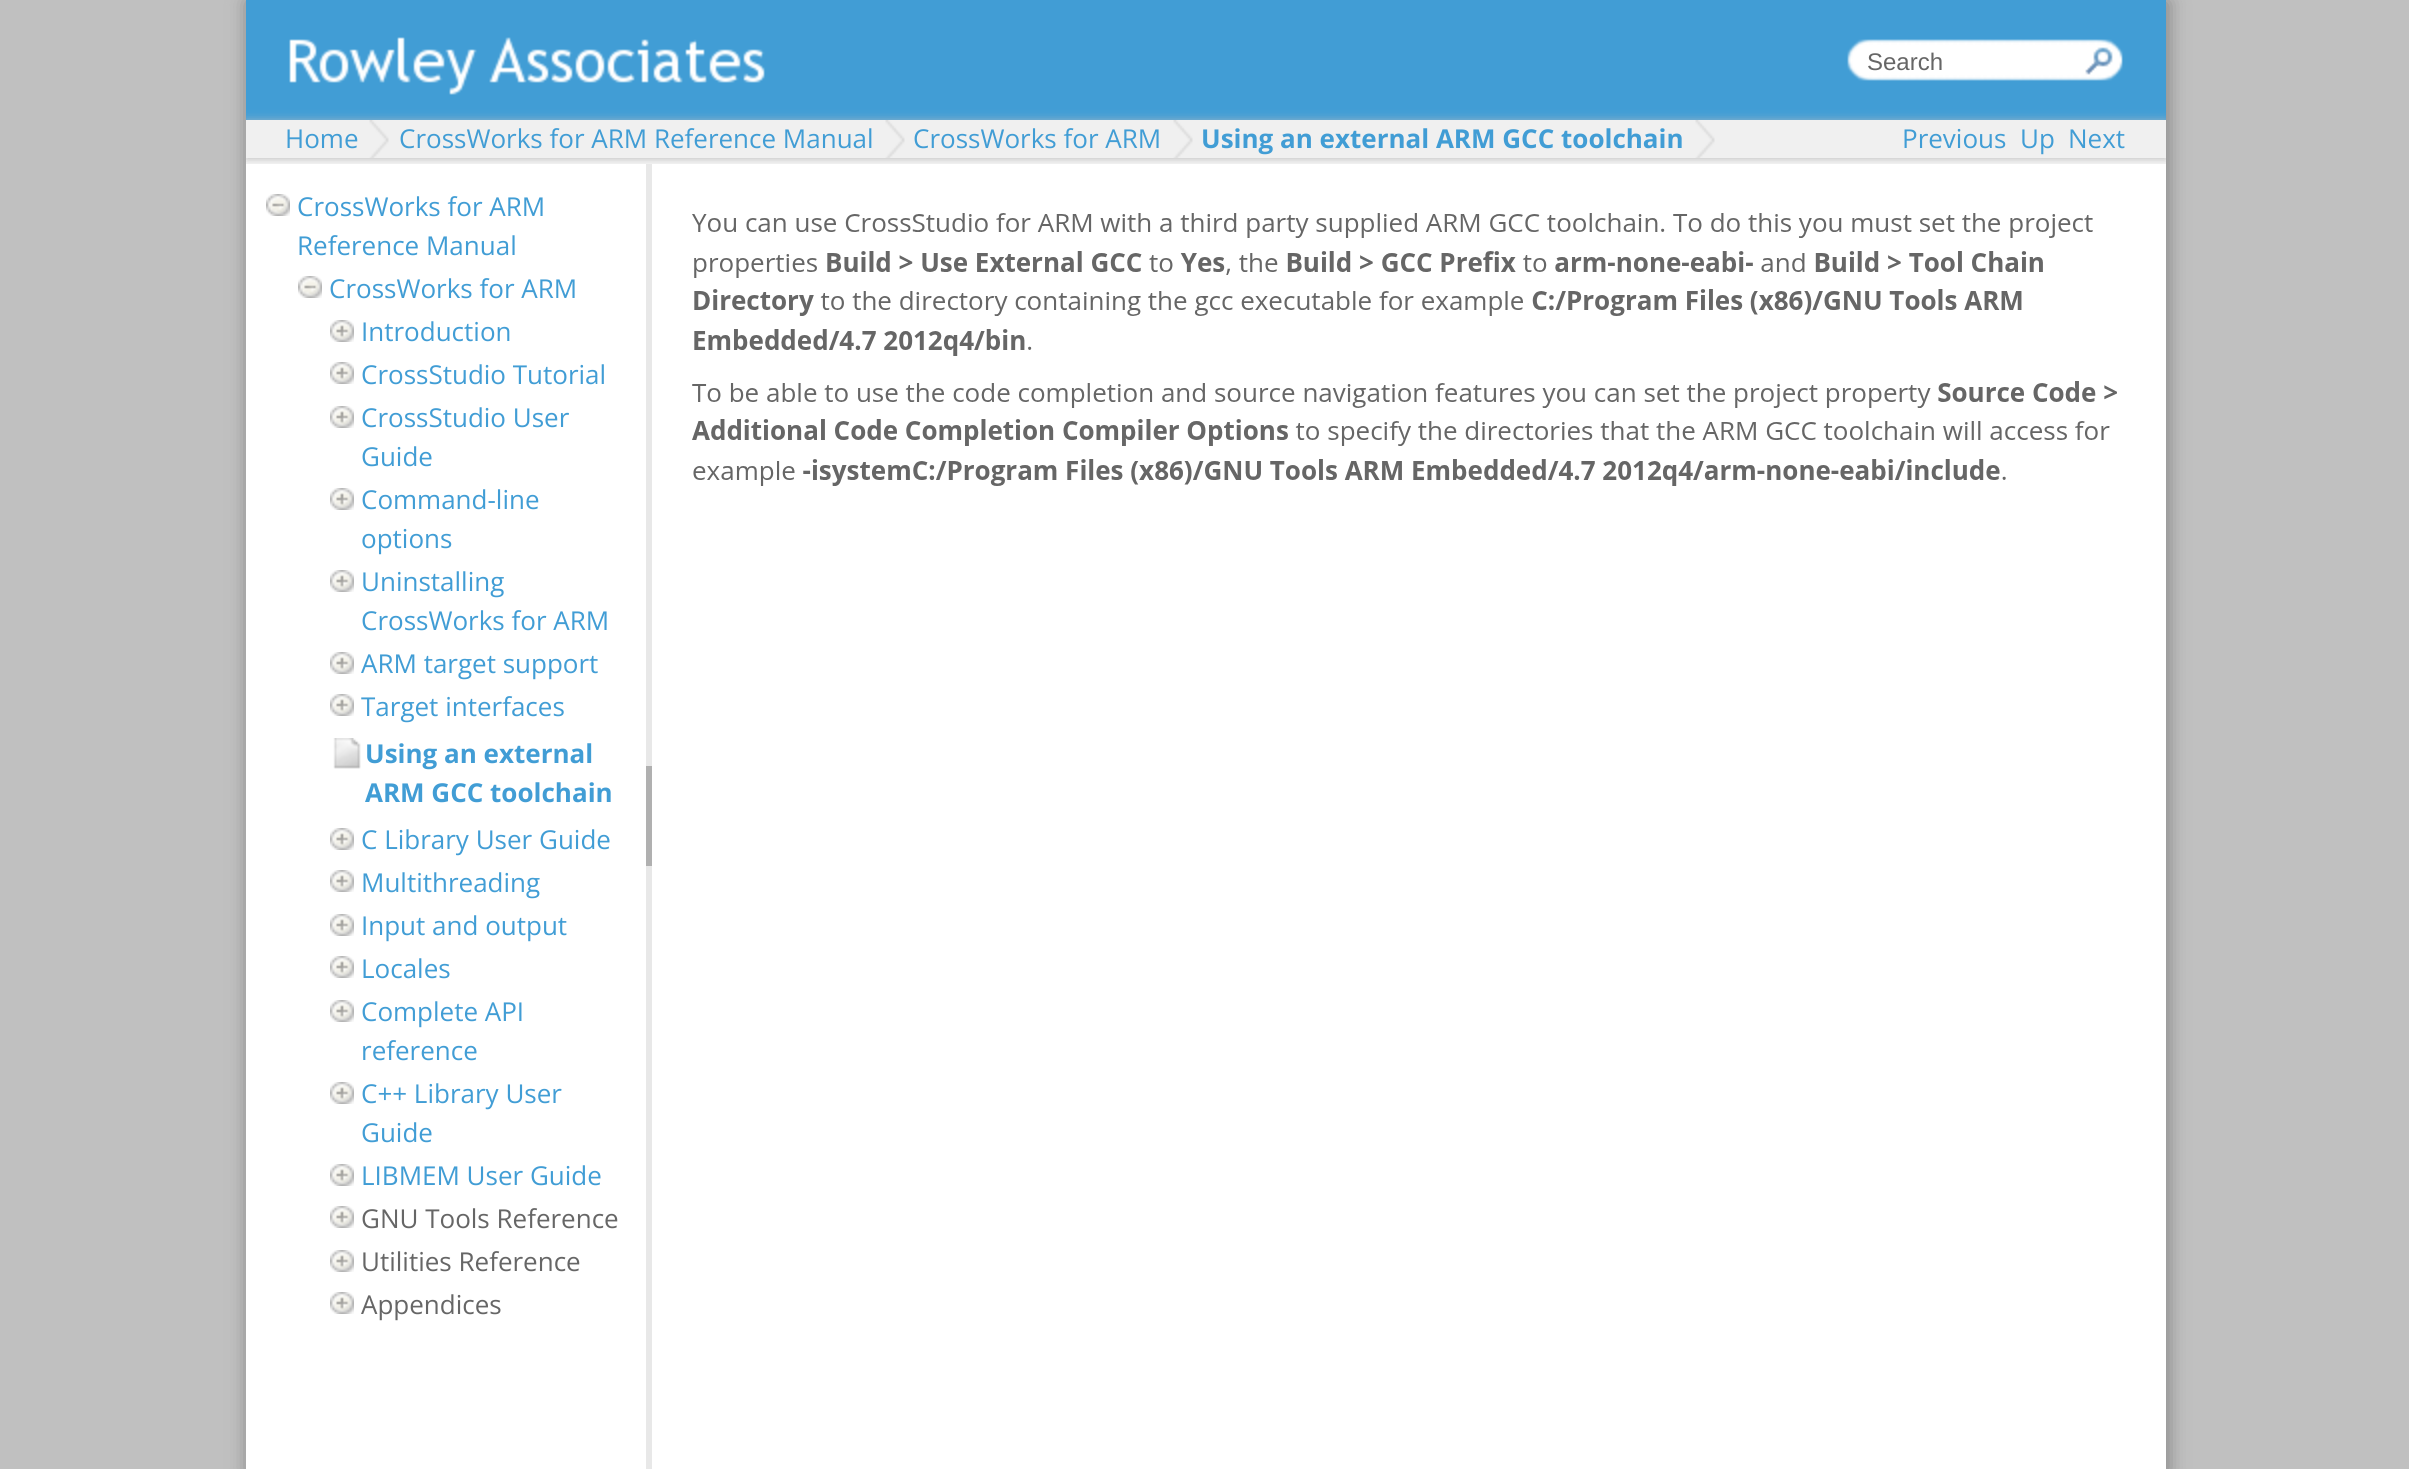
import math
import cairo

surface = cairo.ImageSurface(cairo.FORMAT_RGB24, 2409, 1469)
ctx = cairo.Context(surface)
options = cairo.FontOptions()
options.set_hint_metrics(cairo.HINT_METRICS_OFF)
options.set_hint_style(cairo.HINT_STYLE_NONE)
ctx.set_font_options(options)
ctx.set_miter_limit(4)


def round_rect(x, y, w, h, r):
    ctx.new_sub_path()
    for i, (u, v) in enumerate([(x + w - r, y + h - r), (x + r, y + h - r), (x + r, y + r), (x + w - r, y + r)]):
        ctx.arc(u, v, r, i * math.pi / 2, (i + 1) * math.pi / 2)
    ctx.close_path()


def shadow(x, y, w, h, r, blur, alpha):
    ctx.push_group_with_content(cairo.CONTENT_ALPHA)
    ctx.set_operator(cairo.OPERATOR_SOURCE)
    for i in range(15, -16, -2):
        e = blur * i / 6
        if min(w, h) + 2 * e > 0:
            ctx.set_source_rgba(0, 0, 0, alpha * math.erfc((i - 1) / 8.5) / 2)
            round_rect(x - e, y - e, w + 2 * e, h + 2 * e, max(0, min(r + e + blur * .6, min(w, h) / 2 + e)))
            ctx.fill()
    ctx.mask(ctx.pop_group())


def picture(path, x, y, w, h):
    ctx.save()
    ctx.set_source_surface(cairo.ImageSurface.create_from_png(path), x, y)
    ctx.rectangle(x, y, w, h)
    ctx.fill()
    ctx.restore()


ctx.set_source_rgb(0.753, 0.753, 0.753)
ctx.paint()
ctx.set_source_rgb(0.502, 0.502, 0.502)
shadow(248, 2, 1920, 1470, 0, 10, 1)
ctx.set_source_rgb(1, 1, 1)
ctx.rectangle(246, 158, 1920, 1311)
ctx.fill()
ctx.set_source_rgb(0.255, 0.616, 0.835)
ctx.rectangle(246, 0, 1920, 120)
ctx.fill()
picture("img1.png", 289, 37, 1834, 58)
ctx.select_font_face("Liberation Sans")
ctx.set_font_size(24)
ctx.set_source_rgb(0.4, 0.4, 0.4)
ctx.move_to(1867, 70)
ctx.show_text("Search")
ctx.save()
ctx.rectangle(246, 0, 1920, 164)
ctx.clip()
ctx.set_source_rgb(0.753, 0.753, 0.753)
shadow(246, 122, 1920, 38, 0, 5, 1)
ctx.restore()
ctx.set_source_rgb(0.941, 0.941, 0.941)
ctx.rectangle(246, 120, 1920, 38)
ctx.fill()
picture("img2.png", 369, 120, 20, 38)
ctx.select_font_face("Open Sans")
ctx.set_font_size(26)
ctx.set_source_rgb(0.255, 0.616, 0.835)
ctx.move_to(285, 148)
ctx.show_text("Home")
picture("img2.png", 885, 120, 20, 38)
ctx.move_to(399, 148)
ctx.show_text("CrossWorks for ARM Reference Manual")
picture("img2.png", 1173, 120, 20, 38)
ctx.move_to(913, 148)
ctx.show_text("CrossWorks for ARM")
picture("img2.png", 1695, 120, 20, 38)
ctx.select_font_face("Open Sans", cairo.FONT_SLANT_NORMAL, cairo.FONT_WEIGHT_BOLD)
ctx.move_to(1201, 148)
ctx.show_text("Using an external ARM GCC toolchain")
ctx.select_font_face("Open Sans")
ctx.move_to(1902, 148)
ctx.show_text("Previous")
ctx.move_to(2020, 148)
ctx.show_text("Up")
ctx.move_to(2068, 148)
ctx.show_text("Next")
picture("img3.png", 266, 194, 24, 22)
ctx.move_to(297, 216)
ctx.show_text("CrossWorks for ARM")
ctx.move_to(297, 255)
ctx.show_text("Reference Manual")
picture("img3.png", 298, 276, 24, 22)
ctx.move_to(329, 298)
ctx.show_text("CrossWorks for ARM")
picture("img4.png", 330, 320, 24, 22)
ctx.move_to(361, 341)
ctx.show_text("Introduction")
picture("img4.png", 330, 362, 24, 22)
ctx.move_to(361, 384)
ctx.show_text("CrossStudio Tutorial")
picture("img4.png", 330, 406, 24, 22)
ctx.move_to(361, 427)
ctx.show_text("CrossStudio User")
ctx.move_to(361, 466)
ctx.show_text("Guide")
picture("img4.png", 330, 488, 24, 22)
ctx.move_to(361, 509)
ctx.show_text("Command-line")
ctx.move_to(361, 548)
ctx.show_text("options")
picture("img4.png", 330, 570, 24, 22)
ctx.move_to(361, 591)
ctx.show_text("Uninstalling")
ctx.move_to(361, 630)
ctx.show_text("CrossWorks for ARM")
picture("img4.png", 330, 652, 24, 22)
ctx.move_to(361, 673)
ctx.show_text("ARM target support")
picture("img4.png", 330, 694, 24, 22)
ctx.move_to(361, 716)
ctx.show_text("Target interfaces")
picture("img5.png", 333, 738, 28, 31)
ctx.select_font_face("Open Sans", cairo.FONT_SLANT_NORMAL, cairo.FONT_WEIGHT_BOLD)
ctx.move_to(365, 763)
ctx.show_text("Using an external")
ctx.move_to(365, 802)
ctx.show_text("ARM GCC toolchain")
picture("img4.png", 330, 828, 24, 22)
ctx.select_font_face("Open Sans")
ctx.move_to(361, 849)
ctx.show_text("C Library User Guide")
picture("img4.png", 330, 870, 24, 22)
ctx.move_to(361, 892)
ctx.show_text("Multithreading")
picture("img4.png", 330, 914, 24, 22)
ctx.move_to(361, 935)
ctx.show_text("Input and output")
picture("img4.png", 330, 956, 24, 22)
ctx.move_to(361, 978)
ctx.show_text("Locales")
picture("img4.png", 330, 1000, 24, 22)
ctx.move_to(361, 1021)
ctx.show_text("Complete API")
ctx.move_to(361, 1060)
ctx.show_text("reference")
picture("img4.png", 330, 1082, 24, 22)
ctx.move_to(361, 1103)
ctx.show_text("C++ Library User")
ctx.move_to(361, 1142)
ctx.show_text("Guide")
picture("img4.png", 330, 1164, 24, 22)
ctx.move_to(361, 1185)
ctx.show_text("LIBMEM User Guide")
picture("img4.png", 330, 1206, 24, 22)
ctx.set_source_rgb(0.4, 0.4, 0.4)
ctx.move_to(361, 1228)
ctx.show_text("GNU Tools Reference")
picture("img4.png", 330, 1250, 24, 22)
ctx.move_to(361, 1271)
ctx.show_text("Utilities Reference")
picture("img4.png", 330, 1292, 24, 22)
ctx.move_to(361, 1314)
ctx.show_text("Appendices")
ctx.set_source_rgb(0.91, 0.91, 0.91)
ctx.rectangle(646, 164, 6, 1305)
ctx.fill()
ctx.set_source_rgb(0.69, 0.69, 0.69)
ctx.rectangle(646, 766, 6, 100)
ctx.fill()
picture("img6.png", 692, 213, 1425, 273)
surface.write_to_png("page.png")
